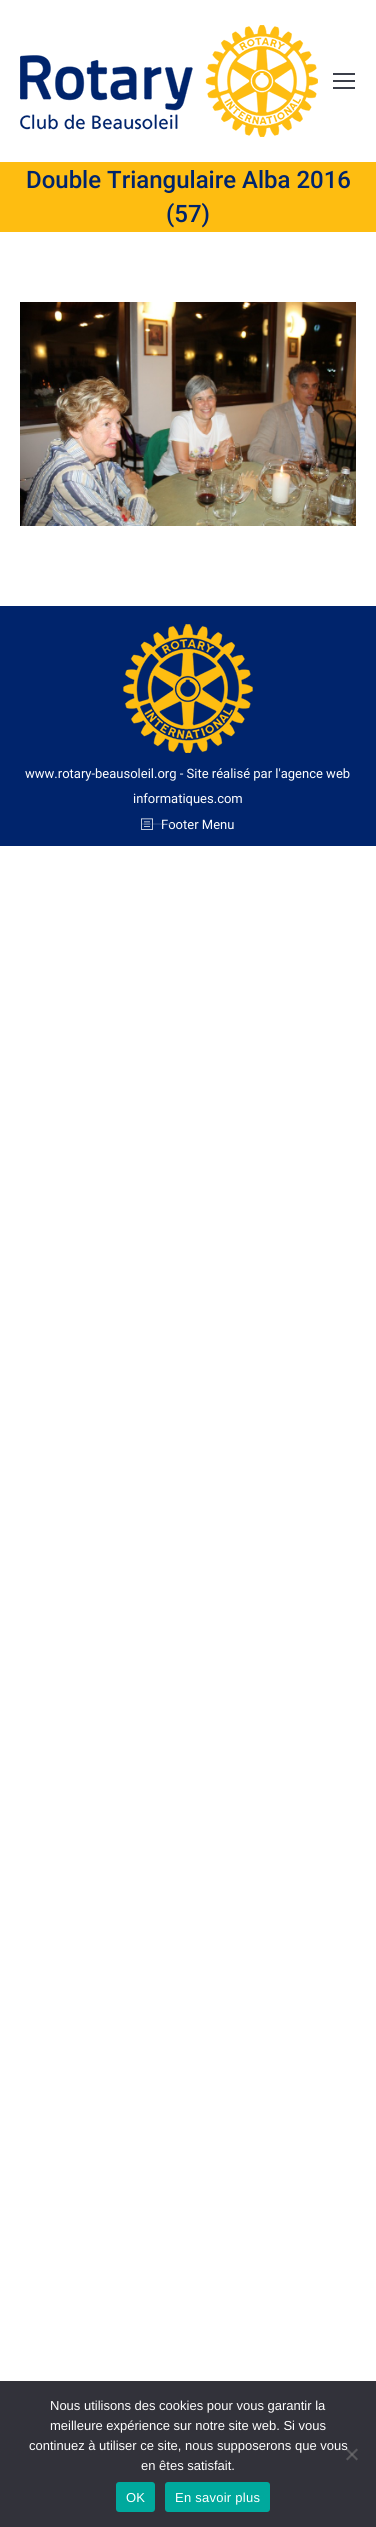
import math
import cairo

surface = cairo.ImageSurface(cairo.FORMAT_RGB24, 376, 2527)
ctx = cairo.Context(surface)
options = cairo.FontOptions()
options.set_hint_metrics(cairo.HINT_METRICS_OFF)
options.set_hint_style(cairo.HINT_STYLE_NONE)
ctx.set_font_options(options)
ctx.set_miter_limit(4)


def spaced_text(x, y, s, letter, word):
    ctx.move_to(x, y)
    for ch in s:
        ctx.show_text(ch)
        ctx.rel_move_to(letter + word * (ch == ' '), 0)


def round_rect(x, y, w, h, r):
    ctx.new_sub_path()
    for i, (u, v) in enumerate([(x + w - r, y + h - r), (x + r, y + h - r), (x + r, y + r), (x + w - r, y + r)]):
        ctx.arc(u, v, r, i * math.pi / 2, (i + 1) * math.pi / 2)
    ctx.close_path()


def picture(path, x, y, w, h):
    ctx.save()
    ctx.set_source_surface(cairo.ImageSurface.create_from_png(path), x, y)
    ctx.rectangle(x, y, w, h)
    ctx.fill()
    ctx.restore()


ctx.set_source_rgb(1, 1, 1)
ctx.paint()
picture("img1.png", 20, 25, 298, 112)
ctx.set_source_rgb(0.231, 0.247, 0.29)
ctx.rectangle(333, 73, 22, 2)
ctx.fill()
ctx.rectangle(333, 80, 22, 2)
ctx.fill()
ctx.rectangle(333, 87, 22, 2)
ctx.fill()
ctx.set_source_rgb(0.996, 0.741, 0.067)
ctx.rectangle(0, 162, 376, 70)
ctx.fill()
ctx.select_font_face("Roboto Medium")
ctx.set_font_size(24)
ctx.set_source_rgb(0, 0.141, 0.424)
ctx.move_to(26, 188)
ctx.show_text("Double Triangulaire Alba 2016")
ctx.move_to(166, 222)
ctx.show_text("(57)")
picture("img2.png", 20, 302, 336, 224)
ctx.rectangle(0, 606, 376, 240)
ctx.fill()
picture("img3.png", 123, 624, 130, 129)
ctx.select_font_face("Roboto")
ctx.set_font_size(13)
ctx.set_source_rgb(1, 1, 1)
ctx.move_to(25, 778)
ctx.show_text("www.rotary-beausoleil.org - Site réalisé par l'agence web")
ctx.move_to(133, 803)
ctx.show_text("informatiques.com")
picture("img4.png", 141, 818, 12, 12)
ctx.move_to(161, 829)
ctx.show_text("Footer Menu")
ctx.set_font_size(14)
ctx.set_source_rgb(0.208, 0.322, 0.545)
ctx.move_to(141, 829)
ctx.show_text("———")
ctx.set_source_rgb(0.196, 0.196, 0.227)
ctx.rectangle(0, 2381, 376, 146)
ctx.fill()
ctx.select_font_face("Liberation Sans")
ctx.set_font_size(13)
ctx.set_source_rgb(1, 1, 1)
ctx.move_to(50, 2410)
ctx.show_text("Nous utilisons des cookies pour vous garantir la")
ctx.move_to(50, 2430)
ctx.show_text("meilleure expérience sur notre site web. Si vous")
ctx.move_to(29, 2450)
ctx.show_text("continuez à utiliser ce site, nous supposerons que vous")
ctx.move_to(141, 2470)
ctx.show_text("en êtes satisfait.")
ctx.set_source_rgb(0.349, 0.349, 0.365)
ctx.new_path()
ctx.move_to(356.5, 2448.5)
ctx.line_to(358, 2450)
ctx.line_to(347.5, 2460.5)
ctx.line_to(346, 2459)
ctx.close_path()
ctx.fill()
ctx.set_source_rgba(0.502, 0.502, 0.502, 0.5)
ctx.new_path()
ctx.move_to(346, 2450)
ctx.line_to(347.5, 2448.5)
ctx.line_to(358, 2459)
ctx.line_to(356.5, 2460.5)
ctx.close_path()
ctx.fill()
ctx.set_source_rgb(0, 0.663, 0.616)
round_rect(116, 2482, 39, 30, 3)
ctx.fill()
ctx.set_source_rgb(1, 1, 1)
spaced_text(126, 2502, "OK", 0.25, 0)
ctx.set_source_rgb(0, 0.663, 0.616)
round_rect(165, 2482, 105, 30, 3)
ctx.fill()
ctx.set_source_rgb(1, 1, 1)
spaced_text(175, 2502, "En savoir plus", 0.25, 0)
surface.write_to_png("page.png")
